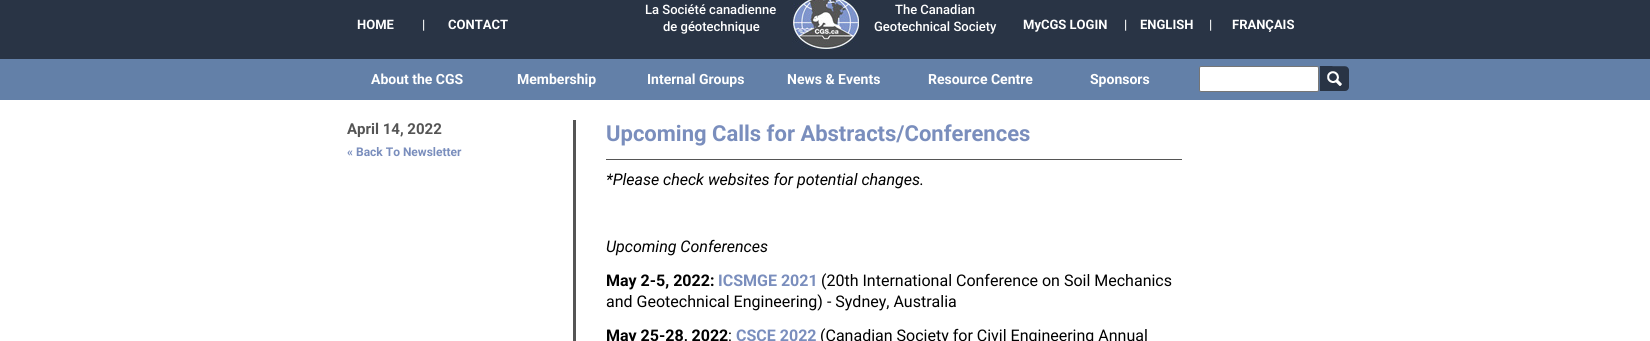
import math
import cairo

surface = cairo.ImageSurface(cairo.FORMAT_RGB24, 1650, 341)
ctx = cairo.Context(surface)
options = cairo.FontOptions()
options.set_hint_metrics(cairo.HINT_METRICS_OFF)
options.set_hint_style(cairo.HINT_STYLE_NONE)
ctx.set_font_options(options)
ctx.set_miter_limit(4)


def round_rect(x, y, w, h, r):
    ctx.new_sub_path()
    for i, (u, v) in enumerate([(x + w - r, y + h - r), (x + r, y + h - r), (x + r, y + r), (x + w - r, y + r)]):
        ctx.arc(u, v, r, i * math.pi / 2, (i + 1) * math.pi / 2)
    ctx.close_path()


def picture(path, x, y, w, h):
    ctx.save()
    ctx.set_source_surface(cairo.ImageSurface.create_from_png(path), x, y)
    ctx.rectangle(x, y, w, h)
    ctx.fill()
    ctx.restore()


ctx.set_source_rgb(1, 1, 1)
ctx.paint()
ctx.set_source_rgb(0.161, 0.204, 0.271)
ctx.rectangle(0, 0, 1650, 59)
ctx.fill()
ctx.select_font_face("Roboto", cairo.FONT_SLANT_NORMAL, cairo.FONT_WEIGHT_BOLD)
ctx.set_font_size(13)
ctx.set_source_rgb(1, 1, 1)
ctx.move_to(357, 29)
ctx.show_text("HOME")
ctx.select_font_face("Roboto Medium")
ctx.move_to(422, 29)
ctx.show_text("|")
ctx.select_font_face("Roboto", cairo.FONT_SLANT_NORMAL, cairo.FONT_WEIGHT_BOLD)
ctx.move_to(448, 29)
ctx.show_text("CONTACT")
ctx.select_font_face("Roboto Medium")
ctx.move_to(645, 14)
ctx.show_text("La Société canadienne")
ctx.move_to(663, 31)
ctx.show_text("de géotechnique")
picture("img1.png", 792, 0, 67, 50)
ctx.move_to(895, 14)
ctx.show_text("The Canadian")
ctx.move_to(874, 31)
ctx.show_text("Geotechnical Society")
ctx.select_font_face("Roboto", cairo.FONT_SLANT_NORMAL, cairo.FONT_WEIGHT_BOLD)
ctx.move_to(1023, 29)
ctx.show_text("MyCGS LOGIN")
ctx.select_font_face("Roboto Medium")
ctx.move_to(1124, 29)
ctx.show_text("|")
ctx.select_font_face("Roboto", cairo.FONT_SLANT_NORMAL, cairo.FONT_WEIGHT_BOLD)
ctx.move_to(1140, 29)
ctx.show_text("ENGLISH")
ctx.select_font_face("Roboto Medium")
ctx.move_to(1209, 29)
ctx.show_text("|")
ctx.select_font_face("Roboto", cairo.FONT_SLANT_NORMAL, cairo.FONT_WEIGHT_BOLD)
ctx.move_to(1232, 29)
ctx.show_text("FRANÇAIS")
ctx.set_source_rgb(0.388, 0.502, 0.659)
ctx.rectangle(0, 59, 1650, 41)
ctx.fill()
ctx.set_font_size(14)
ctx.set_source_rgb(1, 1, 1)
ctx.move_to(371, 84)
ctx.show_text("About the CGS")
ctx.move_to(517, 84)
ctx.show_text("Membership")
ctx.move_to(647, 84)
ctx.show_text("Internal Groups")
ctx.move_to(787, 84)
ctx.show_text("News & Events")
ctx.move_to(928, 84)
ctx.show_text("Resource Centre")
ctx.move_to(1090, 84)
ctx.show_text("Sponsors")
round_rect(1199.5, 66.5, 119, 25, 1.5)
ctx.fill_preserve()
ctx.set_source_rgb(0.463, 0.463, 0.463)
ctx.set_line_width(1)
ctx.stroke()
picture("img2.png", 1319, 66, 30, 25)
ctx.set_font_size(15)
ctx.set_source_rgb(0.333, 0.333, 0.333)
ctx.move_to(347, 134)
ctx.show_text("April 14, 2022")
ctx.set_font_size(12)
ctx.set_source_rgb(0.478, 0.557, 0.741)
ctx.move_to(347, 156)
ctx.show_text("« Back To Newsletter")
ctx.set_source_rgb(0.333, 0.333, 0.333)
ctx.rectangle(573, 120, 3, 221)
ctx.fill()
ctx.rectangle(606, 159, 576, 1)
ctx.fill()
ctx.set_font_size(22)
ctx.set_source_rgb(0.478, 0.557, 0.741)
ctx.move_to(606, 141)
ctx.show_text("Upcoming Calls for Abstracts/Conferences")
ctx.select_font_face("Roboto", cairo.FONT_SLANT_ITALIC)
ctx.set_font_size(16)
ctx.set_source_rgb(0, 0, 0)
ctx.move_to(606, 185)
ctx.show_text("*Please check websites for potential changes.")
ctx.move_to(606, 252)
ctx.show_text("Upcoming Conferences")
ctx.select_font_face("Roboto", cairo.FONT_SLANT_NORMAL, cairo.FONT_WEIGHT_BOLD)
ctx.move_to(606, 286)
ctx.show_text("May 2-5, 2022:")
ctx.set_source_rgb(0.478, 0.557, 0.741)
ctx.move_to(718, 286)
ctx.show_text("ICSMGE 2021")
ctx.select_font_face("Roboto")
ctx.set_source_rgb(0, 0, 0)
ctx.move_to(821, 286)
ctx.show_text("(20th International Conference on Soil Mechanics")
ctx.move_to(606, 307)
ctx.show_text("and Geotechnical Engineering) - Sydney, Australia")
ctx.select_font_face("Roboto", cairo.FONT_SLANT_NORMAL, cairo.FONT_WEIGHT_BOLD)
ctx.move_to(606, 341)
ctx.show_text("May 25-28, 2022")
ctx.select_font_face("Roboto")
ctx.move_to(728, 341)
ctx.show_text(":")
ctx.select_font_face("Roboto", cairo.FONT_SLANT_NORMAL, cairo.FONT_WEIGHT_BOLD)
ctx.set_source_rgb(0.478, 0.557, 0.741)
ctx.move_to(736, 341)
ctx.show_text("CSCE 2022")
ctx.select_font_face("Roboto")
ctx.set_source_rgb(0, 0, 0)
ctx.move_to(820, 341)
ctx.show_text("(Canadian Society for Civil Engineering Annual")
surface.write_to_png("page.png")
